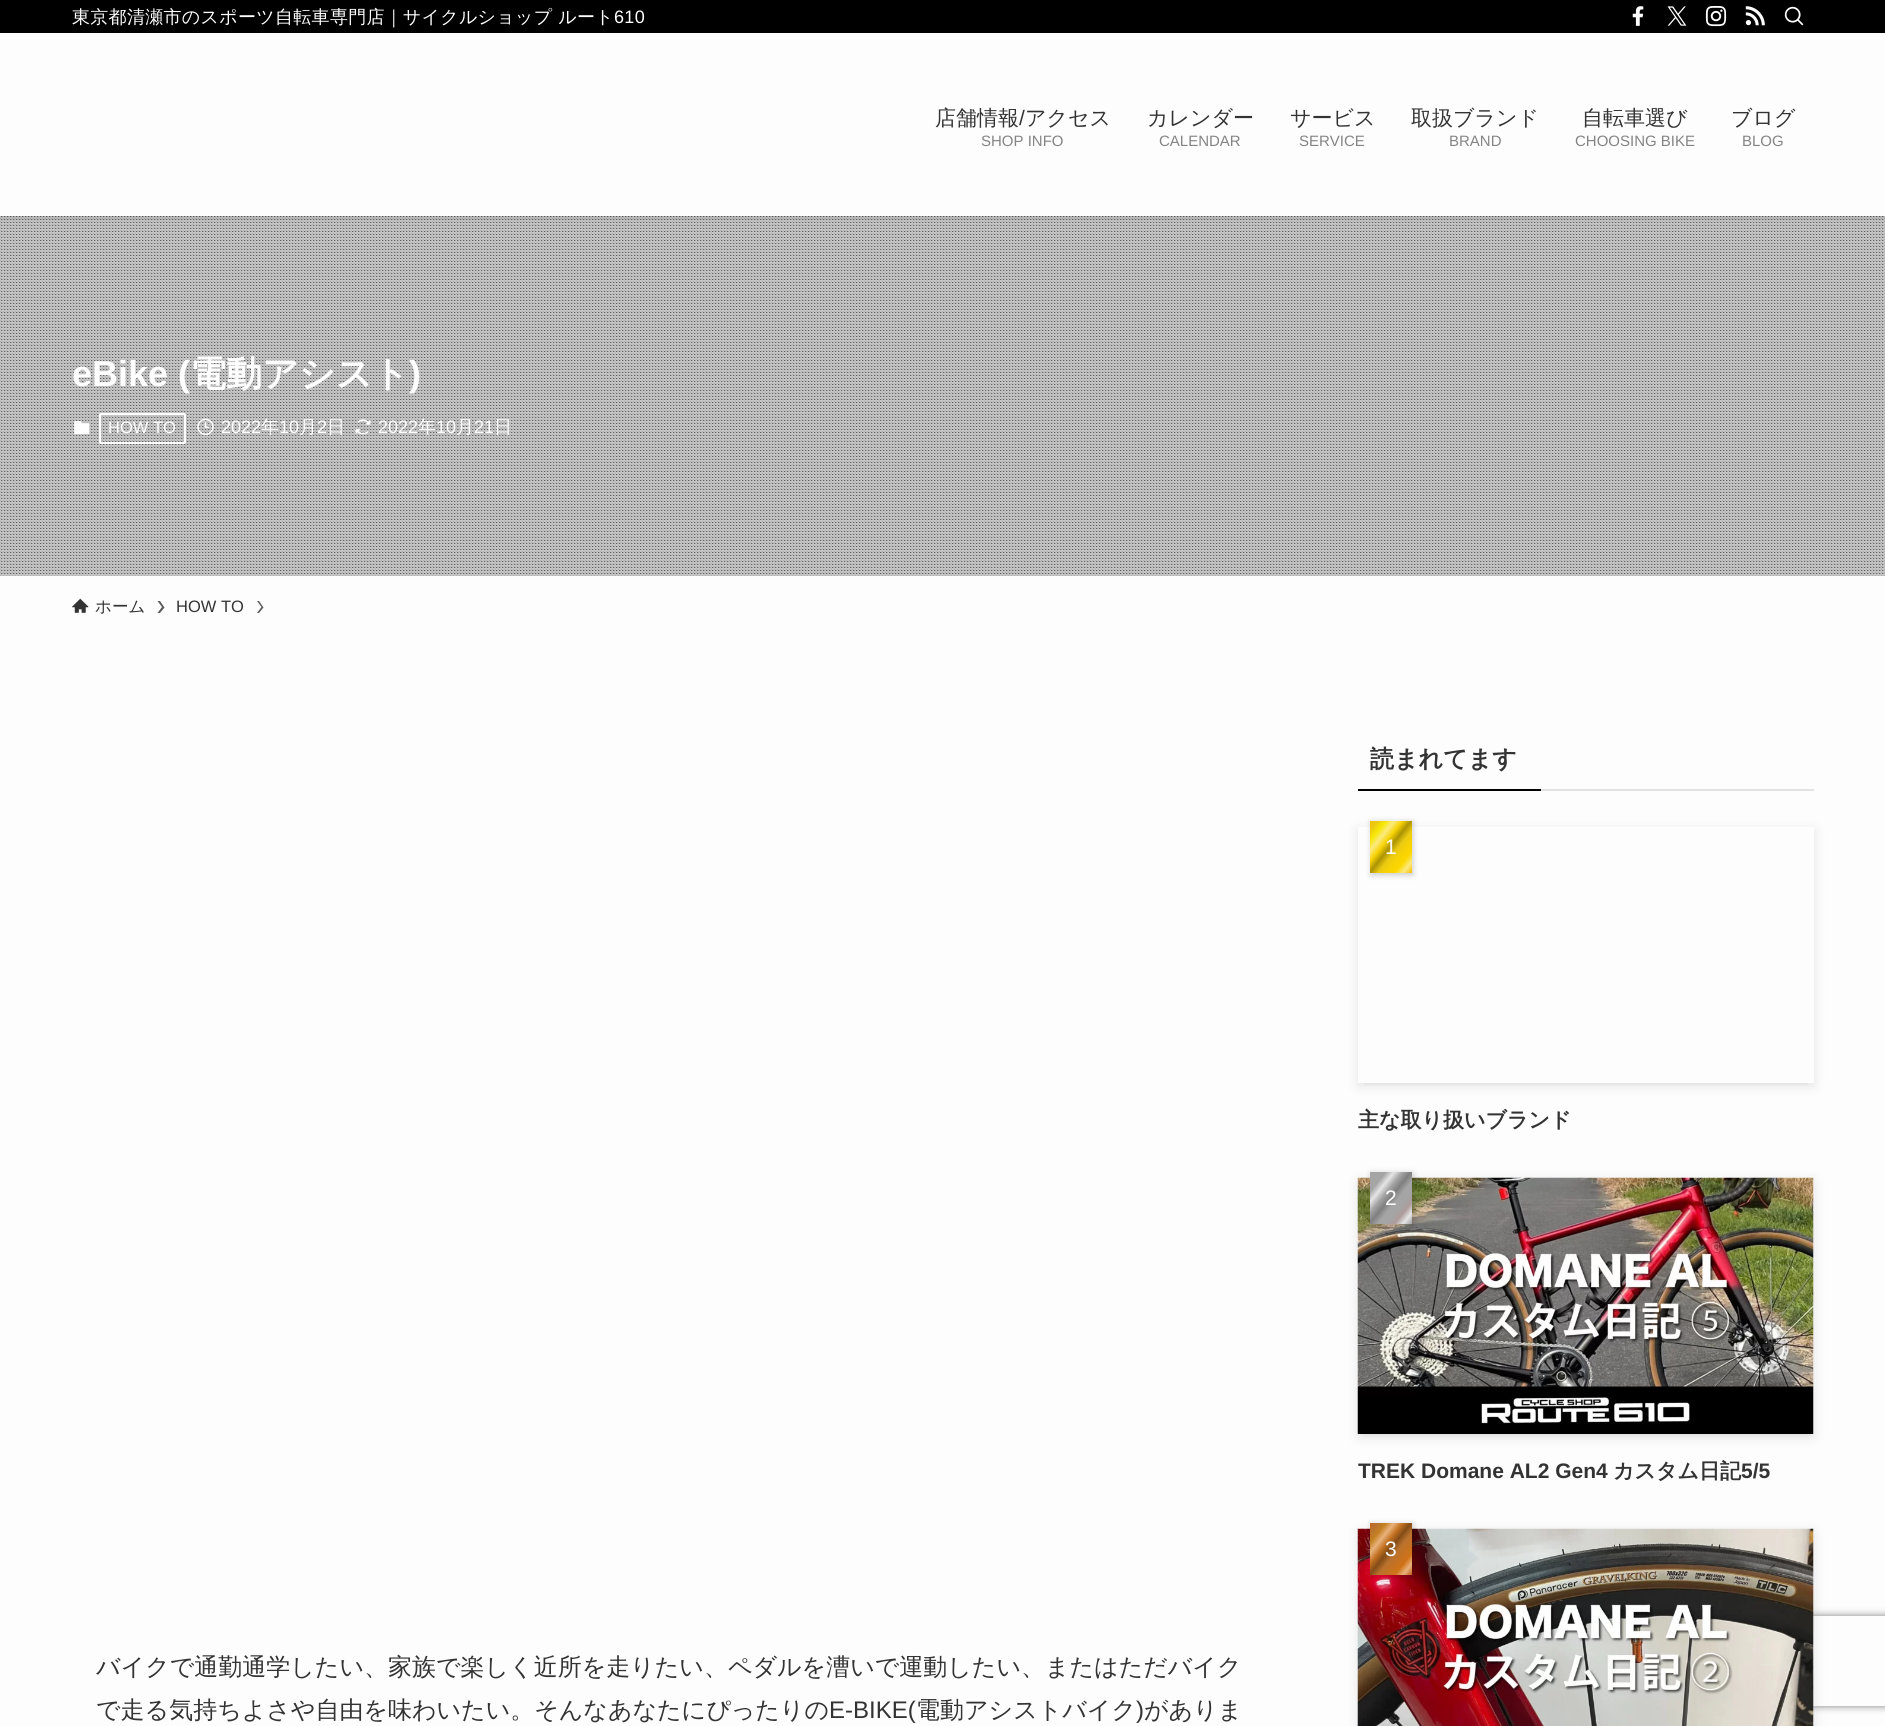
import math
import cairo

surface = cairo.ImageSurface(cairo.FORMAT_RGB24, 1885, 1726)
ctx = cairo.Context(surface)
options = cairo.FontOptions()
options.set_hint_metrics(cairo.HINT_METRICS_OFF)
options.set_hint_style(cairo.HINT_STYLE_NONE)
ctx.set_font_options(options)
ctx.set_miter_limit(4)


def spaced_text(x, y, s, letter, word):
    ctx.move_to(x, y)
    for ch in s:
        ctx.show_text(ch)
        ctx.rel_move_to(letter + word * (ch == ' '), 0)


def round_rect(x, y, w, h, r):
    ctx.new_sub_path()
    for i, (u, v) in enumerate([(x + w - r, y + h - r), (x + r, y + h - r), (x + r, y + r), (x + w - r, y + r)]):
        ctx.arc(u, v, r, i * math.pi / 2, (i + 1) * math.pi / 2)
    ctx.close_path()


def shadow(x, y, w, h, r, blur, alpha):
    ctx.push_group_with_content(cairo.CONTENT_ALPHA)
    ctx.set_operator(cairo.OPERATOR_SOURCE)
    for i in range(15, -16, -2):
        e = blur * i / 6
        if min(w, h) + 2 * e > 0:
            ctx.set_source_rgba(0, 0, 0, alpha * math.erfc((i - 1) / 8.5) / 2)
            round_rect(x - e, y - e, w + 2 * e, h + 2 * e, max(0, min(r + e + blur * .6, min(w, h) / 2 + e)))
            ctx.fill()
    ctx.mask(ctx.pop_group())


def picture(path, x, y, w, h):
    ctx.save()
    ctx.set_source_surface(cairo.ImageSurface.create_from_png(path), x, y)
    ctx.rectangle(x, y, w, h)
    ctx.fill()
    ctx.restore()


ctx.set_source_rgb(0.992, 0.992, 0.992)
ctx.paint()
ctx.set_source_rgb(0.769, 0.769, 0.769)
ctx.rectangle(0, 216, 1885, 360)
ctx.fill()
picture("img6.png", 0, 216, 1885, 360)
ctx.save()
ctx.rectangle(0, 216, 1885, 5)
ctx.clip()
ctx.set_source_rgb(0, 0, 0)
shadow(0, 2, 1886, 216, 0, 3, 0.12)
ctx.restore()
ctx.set_source_rgb(0, 0, 0)
ctx.rectangle(0, 0, 1885, 33)
ctx.fill()
ctx.select_font_face("WenQuanYi Zen Hei Medium")
ctx.set_font_size(18)
ctx.set_source_rgb(1, 1, 1)
spaced_text(72, 23, "東京都清瀬市のスポーツ自転車専門店｜サイクルショップ ルート", 0.3, 0)
ctx.select_font_face("Liberation Sans")
spaced_text(614, 23, "610", 0.3, 0)
picture("img1.png", 1632, 6, 12, 20)
picture("img2.png", 1667, 6, 20, 20)
picture("img3.png", 1705, 6, 22, 21)
picture("img4.png", 1745, 6, 20, 20)
picture("img5.png", 1784, 6, 20, 20)
ctx.select_font_face("WenQuanYi Zen Hei Medium")
ctx.set_font_size(21)
ctx.set_source_rgb(0.2, 0.2, 0.2)
ctx.move_to(935, 125)
ctx.show_text("店舗情報")
ctx.select_font_face("Liberation Sans")
ctx.move_to(1019, 125)
ctx.show_text("/")
ctx.select_font_face("WenQuanYi Zen Hei Medium")
ctx.move_to(1025, 125)
ctx.show_text("アクセス")
ctx.select_font_face("Liberation Sans")
ctx.set_font_size(15)
ctx.set_source_rgb(0.518, 0.518, 0.518)
ctx.move_to(981, 146)
ctx.show_text("SHOP INFO")
ctx.select_font_face("WenQuanYi Zen Hei Medium")
ctx.set_font_size(21)
ctx.set_source_rgb(0.2, 0.2, 0.2)
ctx.move_to(1147, 125)
ctx.show_text("カレンダー")
ctx.select_font_face("Liberation Sans")
ctx.set_font_size(15)
ctx.set_source_rgb(0.518, 0.518, 0.518)
ctx.move_to(1159, 146)
ctx.show_text("CALENDAR")
ctx.select_font_face("WenQuanYi Zen Hei Medium")
ctx.set_font_size(21)
ctx.set_source_rgb(0.2, 0.2, 0.2)
ctx.move_to(1290, 125)
ctx.show_text("サービス")
ctx.select_font_face("Liberation Sans")
ctx.set_font_size(15)
ctx.set_source_rgb(0.518, 0.518, 0.518)
ctx.move_to(1299, 146)
ctx.show_text("SERVICE")
ctx.select_font_face("WenQuanYi Zen Hei Medium")
ctx.set_font_size(21)
ctx.set_source_rgb(0.2, 0.2, 0.2)
ctx.move_to(1411, 125)
ctx.show_text("取扱ブランド")
ctx.select_font_face("Liberation Sans")
ctx.set_font_size(15)
ctx.set_source_rgb(0.518, 0.518, 0.518)
ctx.move_to(1449, 146)
ctx.show_text("BRAND")
ctx.select_font_face("WenQuanYi Zen Hei Medium")
ctx.set_font_size(21)
ctx.set_source_rgb(0.2, 0.2, 0.2)
ctx.move_to(1582, 125)
ctx.show_text("自転車選び")
ctx.select_font_face("Liberation Sans")
ctx.set_font_size(15)
ctx.set_source_rgb(0.518, 0.518, 0.518)
ctx.move_to(1575, 146)
ctx.show_text("CHOOSING BIKE")
ctx.select_font_face("WenQuanYi Zen Hei Medium")
ctx.set_font_size(21)
ctx.set_source_rgb(0.2, 0.2, 0.2)
ctx.move_to(1731, 125)
ctx.show_text("ブログ")
ctx.select_font_face("Liberation Sans")
ctx.set_font_size(15)
ctx.set_source_rgb(0.518, 0.518, 0.518)
ctx.move_to(1742, 146)
ctx.show_text("BLOG")
ctx.select_font_face("Liberation Sans", cairo.FONT_SLANT_NORMAL, cairo.FONT_WEIGHT_BOLD)
ctx.set_font_size(36)
ctx.set_source_rgb(1, 1, 1)
ctx.move_to(72, 386)
ctx.show_text("eBike (")
ctx.select_font_face("WenQuanYi Zen Hei", cairo.FONT_SLANT_NORMAL, cairo.FONT_WEIGHT_BOLD)
ctx.move_to(190, 386)
ctx.show_text("電動アシスト")
ctx.select_font_face("Liberation Sans", cairo.FONT_SLANT_NORMAL, cairo.FONT_WEIGHT_BOLD)
ctx.move_to(409, 386)
ctx.show_text(")")
picture("img7.png", 74, 421, 16, 14)
round_rect(100, 414, 85, 29, 0.5)
ctx.stroke()
ctx.select_font_face("Liberation Sans")
ctx.set_font_size(16.5)
ctx.move_to(108, 433)
ctx.show_text("HOW TO")
picture("img8.png", 197, 418, 17, 18)
ctx.set_font_size(18)
ctx.move_to(221, 433)
ctx.show_text("2022")
ctx.select_font_face("WenQuanYi Zen Hei Medium")
ctx.move_to(261, 433)
ctx.show_text("年")
ctx.select_font_face("Liberation Sans")
ctx.move_to(279, 433)
ctx.show_text("10")
ctx.select_font_face("WenQuanYi Zen Hei Medium")
ctx.move_to(299, 433)
ctx.show_text("月")
ctx.select_font_face("Liberation Sans")
ctx.move_to(317, 433)
ctx.show_text("2")
ctx.select_font_face("WenQuanYi Zen Hei Medium")
ctx.move_to(327, 433)
ctx.show_text("日")
picture("img9.png", 355, 419, 16, 16)
ctx.select_font_face("Liberation Sans")
ctx.move_to(378, 433)
ctx.show_text("2022")
ctx.select_font_face("WenQuanYi Zen Hei Medium")
ctx.move_to(418, 433)
ctx.show_text("年")
ctx.select_font_face("Liberation Sans")
ctx.move_to(436, 433)
ctx.show_text("10")
ctx.select_font_face("WenQuanYi Zen Hei Medium")
ctx.move_to(456, 433)
ctx.show_text("月")
ctx.select_font_face("Liberation Sans")
ctx.move_to(474, 433)
ctx.show_text("21")
ctx.select_font_face("WenQuanYi Zen Hei Medium")
ctx.move_to(494, 433)
ctx.show_text("日")
picture("img10.png", 72, 598, 17, 15)
ctx.set_font_size(16.5)
ctx.set_source_rgb(0.2, 0.2, 0.2)
ctx.move_to(95, 612)
ctx.show_text("ホーム")
ctx.set_source_rgb(0.357, 0.357, 0.357)
ctx.new_path()
ctx.move_to(160, 601)
ctx.line_to(157.5, 601)
ctx.line_to(162, 607)
ctx.line_to(157.5, 613)
ctx.line_to(160, 613)
ctx.line_to(164.5, 607.5)
ctx.close_path()
ctx.fill()
ctx.select_font_face("Liberation Sans")
ctx.set_source_rgb(0.2, 0.2, 0.2)
ctx.move_to(176, 612)
ctx.show_text("HOW TO")
ctx.set_source_rgb(0.357, 0.357, 0.357)
ctx.new_path()
ctx.move_to(259, 601)
ctx.line_to(257, 601)
ctx.line_to(261.5, 607)
ctx.line_to(257, 613)
ctx.line_to(259, 613)
ctx.line_to(263.5, 607.5)
ctx.close_path()
ctx.fill()
ctx.select_font_face("WenQuanYi Zen Hei", cairo.FONT_SLANT_NORMAL, cairo.FONT_WEIGHT_BOLD)
ctx.set_font_size(24)
ctx.set_source_rgb(0.2, 0.2, 0.2)
ctx.move_to(1370, 767)
ctx.show_text("読まれてます")
ctx.set_source_rgb(0, 0, 0)
ctx.rectangle(1358, 789, 183, 2)
ctx.fill()
ctx.set_source_rgb(0.886, 0.886, 0.886)
ctx.rectangle(1541, 789, 273, 2)
ctx.fill()
ctx.set_source_rgb(0, 0, 0)
shadow(1371, 822, 42, 53, 0, 3, 0.2)
ctx.save()
ctx.rectangle(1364, 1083, 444, 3)
ctx.clip()
shadow(1364, 839, 444, 244, 0, 3, 0.1)
ctx.restore()
ctx.save()
ctx.set_fill_rule(cairo.FILL_RULE_EVEN_ODD)
ctx.new_path()
ctx.move_to(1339, 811)
ctx.line_to(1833, 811)
ctx.line_to(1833, 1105)
ctx.line_to(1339, 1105)
ctx.close_path()
ctx.move_to(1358, 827)
ctx.line_to(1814, 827)
ctx.line_to(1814, 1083)
ctx.line_to(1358, 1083)
ctx.close_path()
ctx.clip()
shadow(1358, 830, 456, 256, 0, 6, 0.1)
ctx.restore()
gradient = cairo.LinearGradient(1416, 867, 1365, 826)
gradient.add_color_stop_rgba(0, 0.969, 0.749, 0.02, 1)
gradient.add_color_stop_rgba(0.1, 0.988, 0.918, 0.498, 1)
gradient.add_color_stop_rgba(0.2, 0.988, 0.843, 0, 1)
gradient.add_color_stop_rgba(0.3, 0.969, 0.827, 0.02, 1)
gradient.add_color_stop_rgba(0.4, 0.918, 0.792, 0.071, 1)
gradient.add_color_stop_rgba(0.5, 0.675, 0.576, 0.012, 1)
gradient.add_color_stop_rgba(0.6, 0.969, 0.827, 0.02, 1)
gradient.add_color_stop_rgba(0.7, 0.988, 0.918, 0.498, 1)
gradient.add_color_stop_rgba(0.8, 0.969, 0.906, 0.02, 1)
gradient.add_color_stop_rgba(0.9, 0.918, 0.792, 0.071, 1)
gradient.add_color_stop_rgba(1, 0.969, 0.749, 0.02, 1)
ctx.set_source(gradient)
ctx.rectangle(1370, 821, 42, 52)
ctx.fill()
ctx.select_font_face("Liberation Sans")
ctx.set_font_size(21)
ctx.set_source_rgb(1, 1, 1)
ctx.move_to(1385, 854)
ctx.show_text("1")
ctx.select_font_face("WenQuanYi Zen Hei", cairo.FONT_SLANT_NORMAL, cairo.FONT_WEIGHT_BOLD)
ctx.set_source_rgb(0.2, 0.2, 0.2)
ctx.move_to(1358, 1127)
ctx.show_text("主な取り扱いブランド")
ctx.set_source_rgb(0, 0, 0)
shadow(1364, 1190, 444, 244, 0, 3, 0.1)
shadow(1358, 1181, 456, 256, 0, 6, 0.1)
picture("img11.png", 1357, 1177, 457, 257)
shadow(1371, 1173, 42, 53, 0, 3, 0.2)
gradient = cairo.LinearGradient(1416, 1218, 1365, 1177)
gradient.add_color_stop_rgba(0, 0.647, 0.647, 0.647, 1)
gradient.add_color_stop_rgba(0.1, 0.898, 0.898, 0.898, 1)
gradient.add_color_stop_rgba(0.2, 0.682, 0.612, 0.612, 1)
gradient.add_color_stop_rgba(0.3, 0.647, 0.647, 0.647, 1)
gradient.add_color_stop_rgba(0.4, 0.647, 0.647, 0.647, 1)
gradient.add_color_stop_rgba(0.5, 0.498, 0.498, 0.498, 1)
gradient.add_color_stop_rgba(0.6, 0.647, 0.647, 0.647, 1)
gradient.add_color_stop_rgba(0.7, 0.898, 0.898, 0.898, 1)
gradient.add_color_stop_rgba(0.8, 0.647, 0.647, 0.647, 1)
gradient.add_color_stop_rgba(1, 0.647, 0.647, 0.647, 1)
ctx.set_source(gradient)
ctx.rectangle(1370, 1172, 42, 52)
ctx.fill()
ctx.select_font_face("Liberation Sans")
ctx.set_source_rgb(1, 1, 1)
ctx.move_to(1385, 1205)
ctx.show_text("2")
ctx.select_font_face("Liberation Sans", cairo.FONT_SLANT_NORMAL, cairo.FONT_WEIGHT_BOLD)
ctx.set_source_rgb(0.2, 0.2, 0.2)
ctx.move_to(1358, 1478)
ctx.show_text("TREK Domane AL2 Gen4")
ctx.select_font_face("WenQuanYi Zen Hei", cairo.FONT_SLANT_NORMAL, cairo.FONT_WEIGHT_BOLD)
ctx.move_to(1613, 1478)
ctx.show_text("カスタム日記")
ctx.select_font_face("Liberation Sans", cairo.FONT_SLANT_NORMAL, cairo.FONT_WEIGHT_BOLD)
ctx.move_to(1741, 1478)
ctx.show_text("5/5")
ctx.set_source_rgb(0, 0, 0)
shadow(1358, 1532, 456, 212, 0, 6, 0.1)
ctx.save()
ctx.set_fill_rule(cairo.FILL_RULE_EVEN_ODD)
ctx.new_path()
ctx.move_to(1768, 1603)
ctx.line_to(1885, 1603)
ctx.line_to(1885, 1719)
ctx.line_to(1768, 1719)
ctx.close_path()
ctx.move_to(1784, 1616)
ctx.line_to(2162, 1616)
ctx.curve_to(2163.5, 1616, 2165, 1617.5, 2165, 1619)
ctx.line_to(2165, 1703)
ctx.curve_to(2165, 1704.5, 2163.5, 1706, 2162, 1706)
ctx.line_to(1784, 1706)
ctx.curve_to(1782.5, 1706, 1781, 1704.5, 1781, 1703)
ctx.line_to(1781, 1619)
ctx.curve_to(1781, 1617.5, 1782.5, 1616, 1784, 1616)
ctx.close_path()
ctx.clip()
ctx.set_source_rgb(0.502, 0.502, 0.502)
shadow(1781, 1616, 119, 90, 3, 4, 1)
ctx.restore()
picture("img12.png", 1357, 1528, 457, 198)
shadow(1371, 1524, 42, 53, 0, 3, 0.2)
gradient = cairo.LinearGradient(1416, 1569, 1365, 1528)
gradient.add_color_stop_rgba(0, 0.769, 0.396, 0.133, 1)
gradient.add_color_stop_rgba(0.1, 0.91, 0.698, 0.49, 1)
gradient.add_color_stop_rgba(0.2, 0.816, 0.447, 0.09, 1)
gradient.add_color_stop_rgba(0.3, 0.769, 0.447, 0.133, 1)
gradient.add_color_stop_rgba(0.4, 0.725, 0.447, 0.18, 1)
gradient.add_color_stop_rgba(0.5, 0.514, 0.298, 0.09, 1)
gradient.add_color_stop_rgba(0.6, 0.769, 0.447, 0.133, 1)
gradient.add_color_stop_rgba(0.7, 0.91, 0.698, 0.49, 1)
gradient.add_color_stop_rgba(0.8, 0.769, 0.502, 0.133, 1)
gradient.add_color_stop_rgba(0.9, 0.725, 0.447, 0.18, 1)
gradient.add_color_stop_rgba(1, 0.769, 0.396, 0.133, 1)
ctx.set_source(gradient)
ctx.rectangle(1370, 1523, 42, 52)
ctx.fill()
ctx.select_font_face("Liberation Sans")
ctx.set_source_rgb(1, 1, 1)
ctx.move_to(1385, 1556)
ctx.show_text("3")
ctx.select_font_face("WenQuanYi Zen Hei Medium")
ctx.set_font_size(24)
ctx.set_source_rgb(0.2, 0.2, 0.2)
ctx.move_to(96, 1675)
ctx.show_text("バイクで通勤通学したい、家族で楽しく近所を走りたい、ペダルを漕いで運動したい、またはただバイク")
ctx.move_to(96, 1718)
ctx.show_text("で走る気持ちよさや自由を味わいたい。そんなあなたにぴったりの")
ctx.select_font_face("Liberation Sans")
ctx.move_to(829, 1718)
ctx.show_text("E-BIKE(")
ctx.select_font_face("WenQuanYi Zen Hei Medium")
ctx.move_to(916, 1718)
ctx.show_text("電動アシストバイク")
ctx.select_font_face("Liberation Sans")
ctx.move_to(1136, 1718)
ctx.show_text(")")
ctx.select_font_face("WenQuanYi Zen Hei Medium")
ctx.move_to(1144, 1718)
ctx.show_text("がありま")
surface.write_to_png("page.png")
